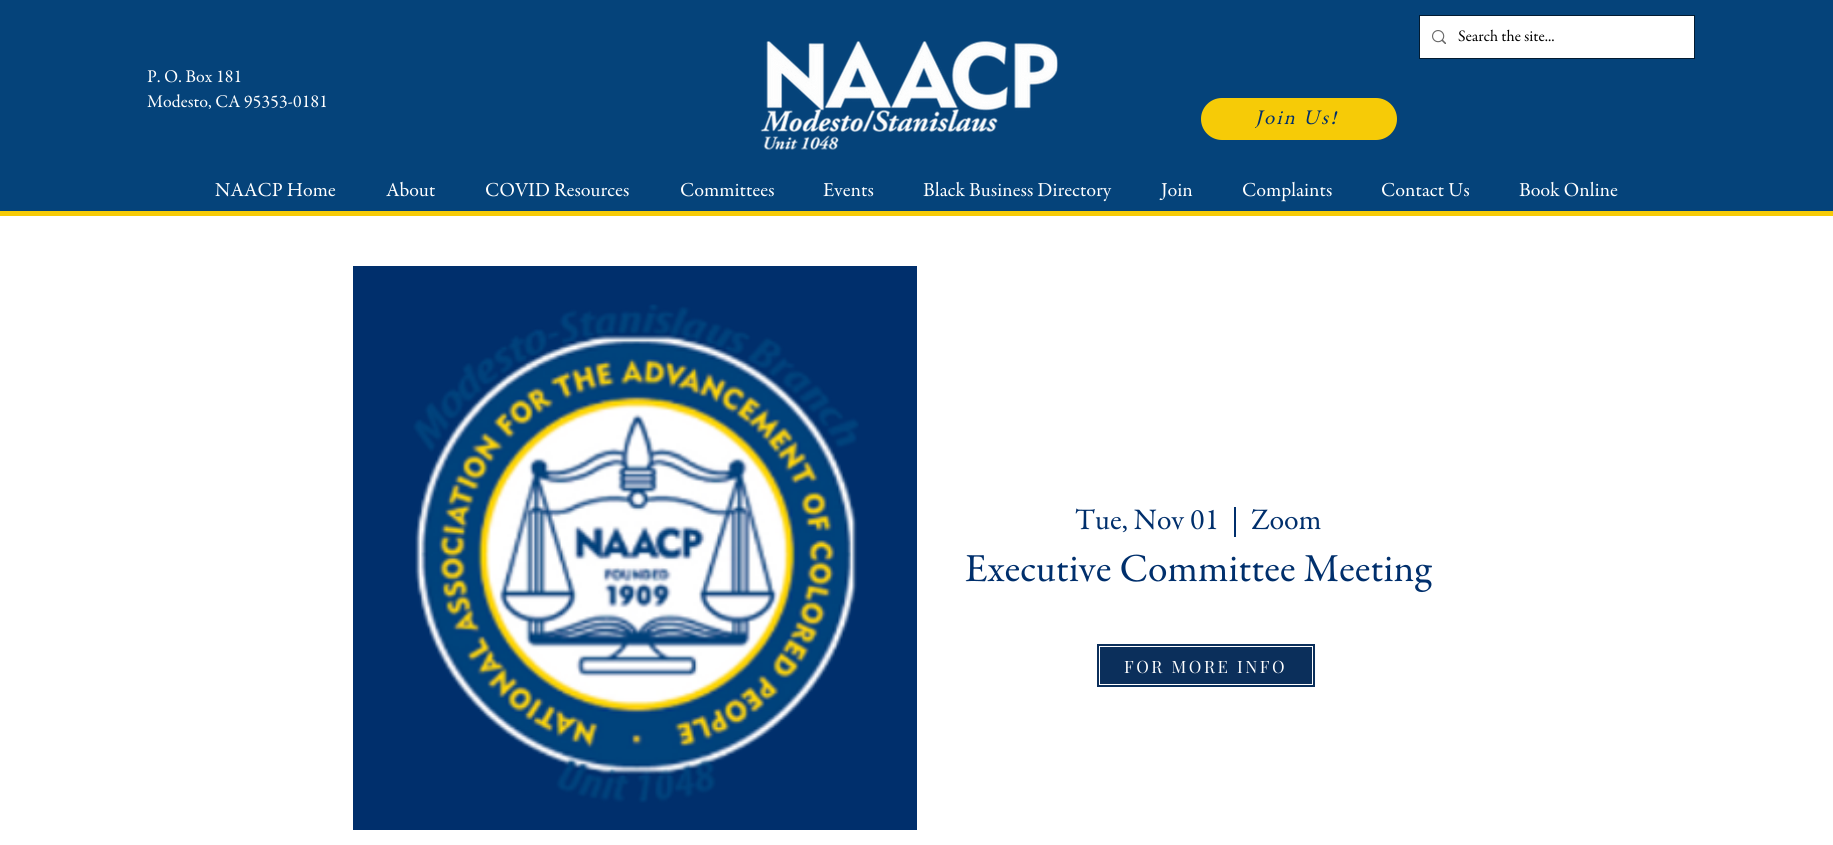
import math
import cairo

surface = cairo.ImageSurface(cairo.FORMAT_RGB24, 1833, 845)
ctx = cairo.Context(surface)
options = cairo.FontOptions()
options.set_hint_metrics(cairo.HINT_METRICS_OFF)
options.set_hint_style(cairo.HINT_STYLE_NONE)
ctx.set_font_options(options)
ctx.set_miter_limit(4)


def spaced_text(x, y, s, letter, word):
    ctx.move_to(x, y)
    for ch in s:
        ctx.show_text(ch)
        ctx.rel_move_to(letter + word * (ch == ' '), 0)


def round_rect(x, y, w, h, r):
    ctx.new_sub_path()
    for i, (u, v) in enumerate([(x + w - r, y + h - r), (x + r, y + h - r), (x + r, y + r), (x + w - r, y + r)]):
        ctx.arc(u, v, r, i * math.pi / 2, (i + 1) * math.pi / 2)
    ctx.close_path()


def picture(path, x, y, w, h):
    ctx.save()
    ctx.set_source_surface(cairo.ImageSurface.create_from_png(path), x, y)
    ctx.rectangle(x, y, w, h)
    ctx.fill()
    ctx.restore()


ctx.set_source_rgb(1, 1, 1)
ctx.paint()
ctx.set_source_rgb(0.02, 0.263, 0.478)
ctx.rectangle(0, 0, 1833, 211)
ctx.fill()
ctx.set_source_rgb(0.961, 0.796, 0.031)
ctx.rectangle(0, 211, 1833, 5)
ctx.fill()
ctx.rectangle(1419.5, 15.5, 275, 43)
ctx.set_source_rgb(0.008, 0.106, 0.192)
ctx.set_line_width(1)
ctx.stroke()
ctx.set_source_rgb(1, 1, 1)
ctx.rectangle(1420, 16, 274, 42)
ctx.fill()
picture("img1.png", 1432, 30, 14, 14)
picture("img2.png", 1458, 29, 96, 13)
picture("img3.png", 147, 70, 94, 13)
picture("img4.png", 147, 94, 179, 15)
picture("img5.png", 760, 41, 298, 109)
ctx.set_source_rgb(0.961, 0.796, 0.031)
round_rect(1201, 98, 196, 42, 21)
ctx.fill()
picture("img6.png", 1255, 110, 83, 18)
picture("img7.png", 215, 182, 121, 15)
picture("img8.png", 386, 181, 49, 16)
picture("img9.png", 486, 182, 143, 15)
picture("img10.png", 681, 182, 93, 15)
picture("img11.png", 823, 183, 51, 14)
picture("img12.png", 923, 181, 189, 21)
picture("img13.png", 1159, 183, 34, 18)
picture("img14.png", 1243, 181, 89, 21)
picture("img15.png", 1382, 182, 87, 15)
picture("img16.png", 1519, 181, 99, 16)
ctx.set_source_rgb(0, 0.184, 0.424)
ctx.rectangle(353, 266, 564, 564)
ctx.fill()
picture("img17.png", 413, 304, 446, 499)
picture("img18.png", 1075, 508, 142, 25)
ctx.rectangle(1234, 507, 2, 30)
ctx.fill()
picture("img19.png", 1252, 509, 69, 21)
picture("img20.png", 965, 554, 467, 39)
ctx.set_source_rgb(0.043, 0.184, 0.357)
ctx.rectangle(1097, 644, 218, 43)
ctx.fill()
ctx.rectangle(1099.5, 646.5, 213, 38)
ctx.set_source_rgb(1, 1, 1)
ctx.stroke()
ctx.select_font_face("Playfair Display")
ctx.set_font_size(17)
spaced_text(1124, 673, "FOR MORE INFO", 2.5, 0)
surface.write_to_png("page.png")
